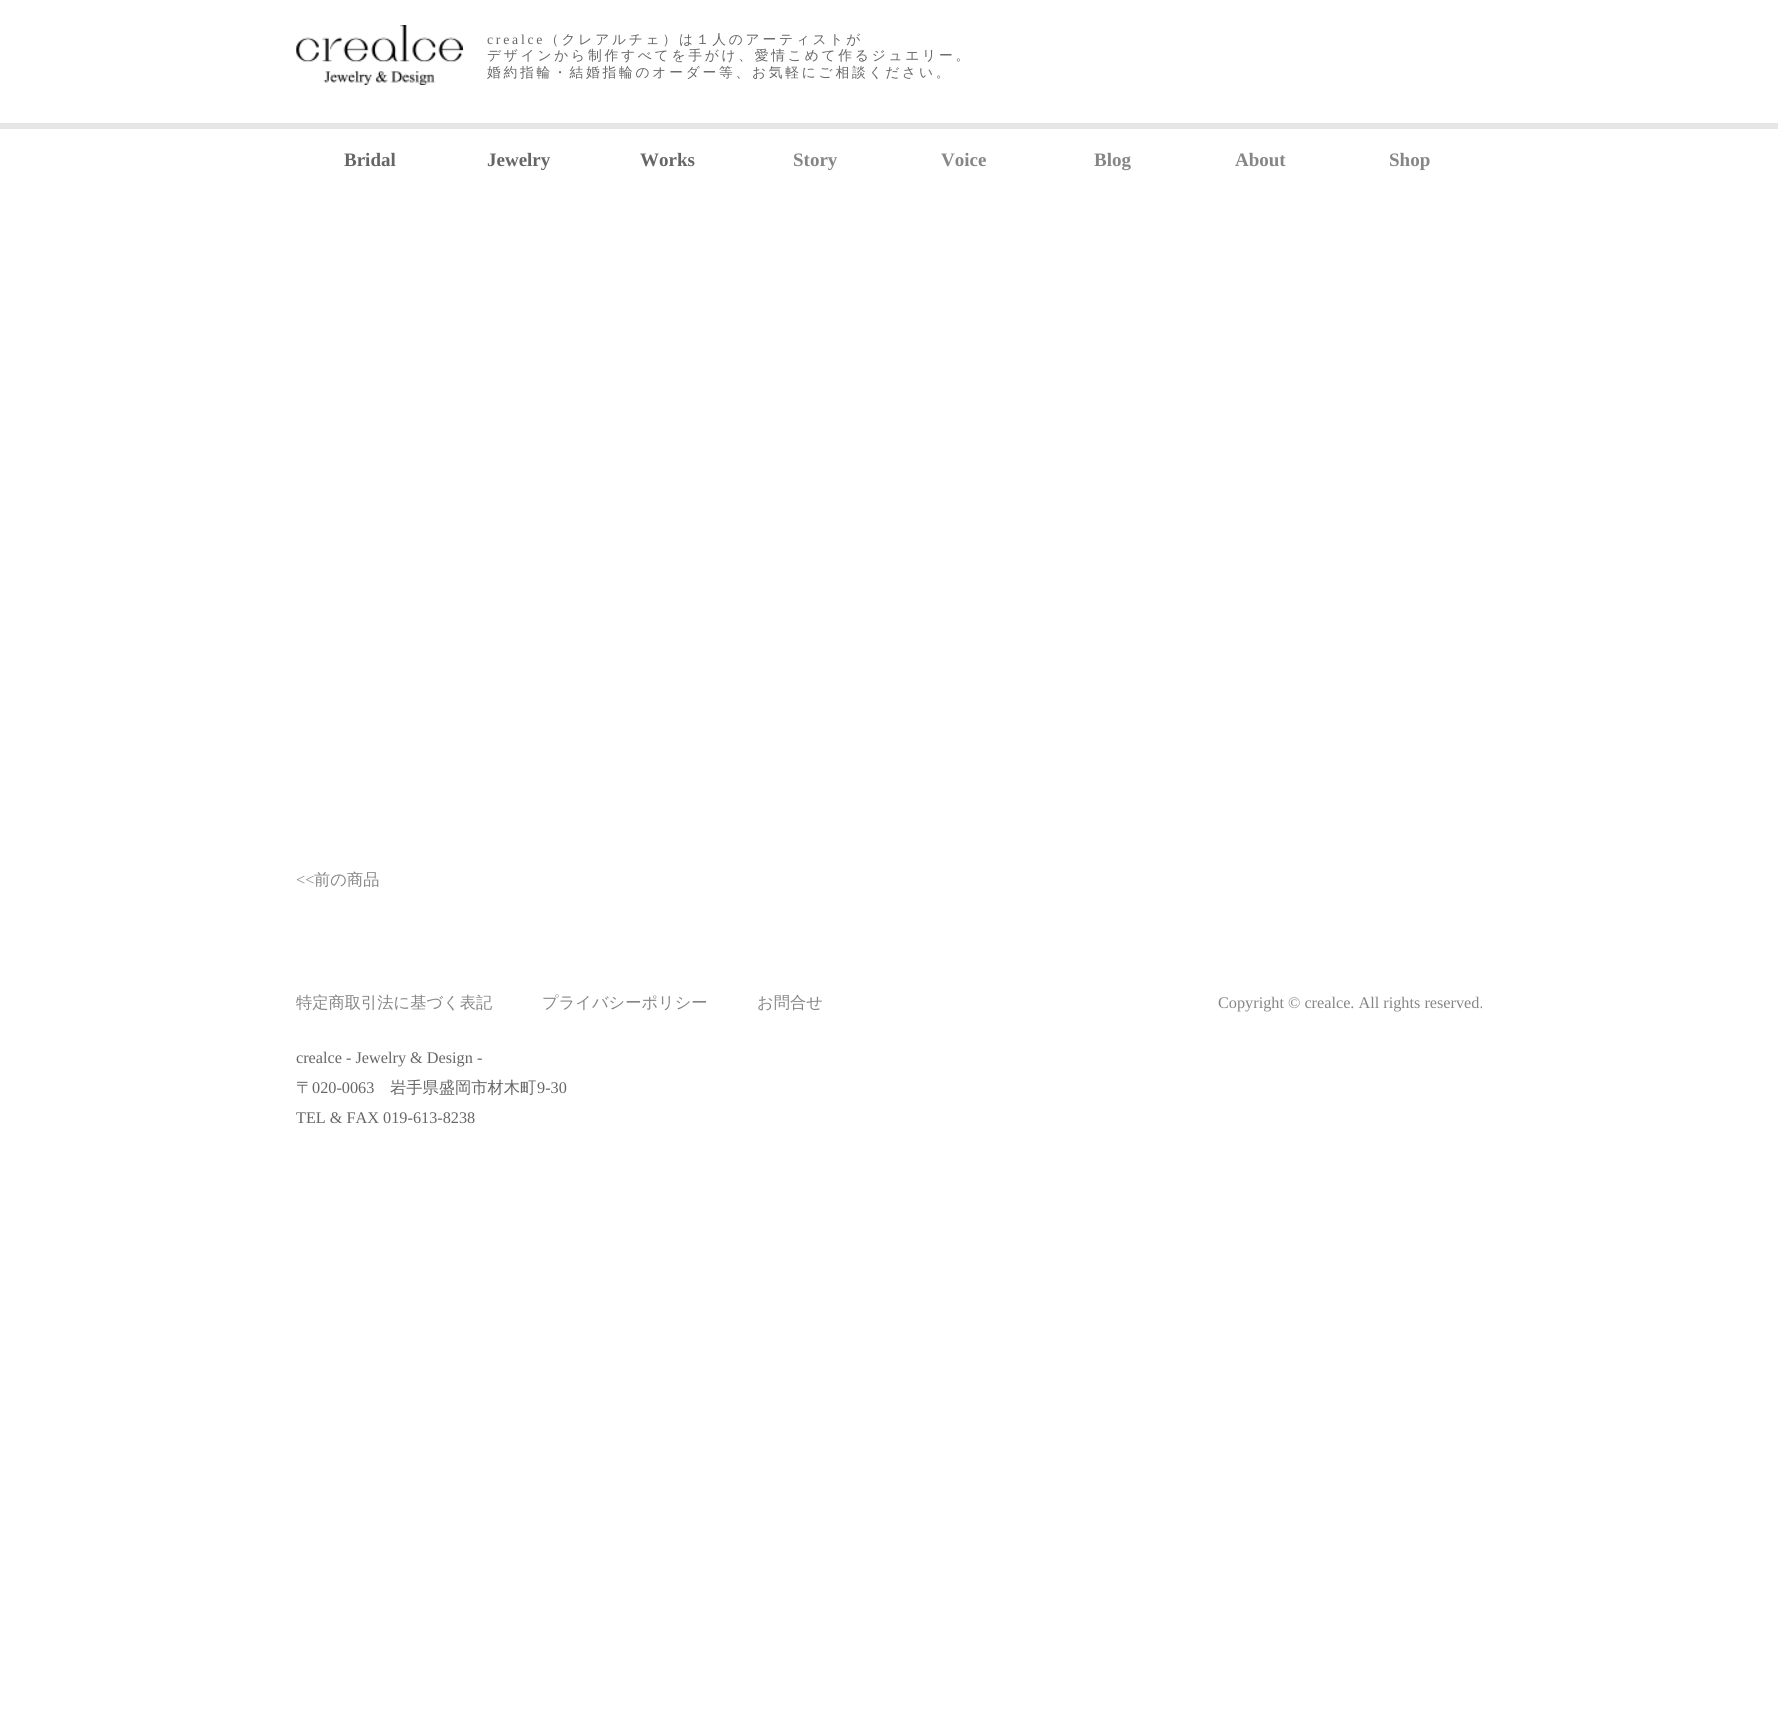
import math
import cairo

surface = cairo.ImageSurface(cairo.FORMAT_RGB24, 1778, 1726)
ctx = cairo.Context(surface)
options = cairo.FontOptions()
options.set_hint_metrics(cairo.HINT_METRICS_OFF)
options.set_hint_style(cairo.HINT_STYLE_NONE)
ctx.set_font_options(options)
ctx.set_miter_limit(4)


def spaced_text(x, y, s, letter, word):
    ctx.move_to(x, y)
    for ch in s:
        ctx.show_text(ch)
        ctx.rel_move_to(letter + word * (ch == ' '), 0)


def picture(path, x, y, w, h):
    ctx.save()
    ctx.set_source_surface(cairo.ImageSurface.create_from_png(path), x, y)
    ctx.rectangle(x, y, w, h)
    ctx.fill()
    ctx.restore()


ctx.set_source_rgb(1, 1, 1)
ctx.paint()
picture("img1.png", 296, 25, 167, 60)
ctx.select_font_face("Liberation Serif")
ctx.set_font_size(13.75)
ctx.set_source_rgb(0.4, 0.4, 0.4)
spaced_text(487, 44, "crealce", 2.75, 0)
ctx.select_font_face("WenQuanYi Zen Hei Medium")
spaced_text(545, 44, "（クレアルチェ）は１人のアーティストが", 2.75, 0)
spaced_text(487, 60, "デザインから制作すべてを手がけ、愛情こめて作るジュエリー。", 2.75, 0)
spaced_text(487, 77, "婚約指輪・結婚指輪のオーダー等、お気軽にご相談ください。", 2.75, 0)
ctx.set_source_rgb(0.902, 0.902, 0.902)
ctx.rectangle(0, 123, 1778, 6)
ctx.fill()
ctx.select_font_face("Liberation Serif", cairo.FONT_SLANT_NORMAL, cairo.FONT_WEIGHT_BOLD)
ctx.set_font_size(19)
ctx.set_source_rgb(0.4, 0.4, 0.4)
ctx.move_to(344, 166)
ctx.show_text("Bridal")
ctx.move_to(487, 166)
ctx.show_text("Jewelry")
ctx.move_to(640, 166)
ctx.show_text("Works")
ctx.set_source_rgb(0.525, 0.525, 0.525)
ctx.move_to(793, 166)
ctx.show_text("Story")
ctx.move_to(941, 166)
ctx.show_text("Voice")
ctx.move_to(1094, 166)
ctx.show_text("Blog")
ctx.move_to(1235, 166)
ctx.show_text("About")
ctx.move_to(1389, 166)
ctx.show_text("Shop")
ctx.select_font_face("Liberation Serif")
ctx.set_font_size(16.25)
ctx.move_to(296, 885)
ctx.show_text("<<")
ctx.select_font_face("WenQuanYi Zen Hei Medium")
ctx.move_to(314, 885)
ctx.show_text("前の商品")
ctx.move_to(296, 1008)
ctx.show_text("特定商取引法に基づく表記")
ctx.move_to(542, 1008)
ctx.show_text("プライバシーポリシー")
ctx.move_to(757, 1008)
ctx.show_text("お問合せ")
ctx.select_font_face("Liberation Serif")
ctx.move_to(1218, 1008)
ctx.show_text("Copyright © crealce. All rights reserved.")
ctx.set_source_rgb(0.4, 0.4, 0.4)
ctx.move_to(296, 1063)
ctx.show_text("crealce - Jewelry & Design -")
ctx.select_font_face("WenQuanYi Zen Hei Medium")
ctx.move_to(296, 1093)
ctx.show_text("〒")
ctx.select_font_face("Liberation Serif")
ctx.move_to(312, 1093)
ctx.show_text("020-0063")
ctx.select_font_face("WenQuanYi Zen Hei Medium")
ctx.move_to(390, 1093)
ctx.show_text("岩手県盛岡市材木町")
ctx.select_font_face("Liberation Serif")
ctx.move_to(537, 1093)
ctx.show_text("9-30")
ctx.move_to(296, 1123)
ctx.show_text("TEL & FAX 019-613-8238")
surface.write_to_png("page.png")
